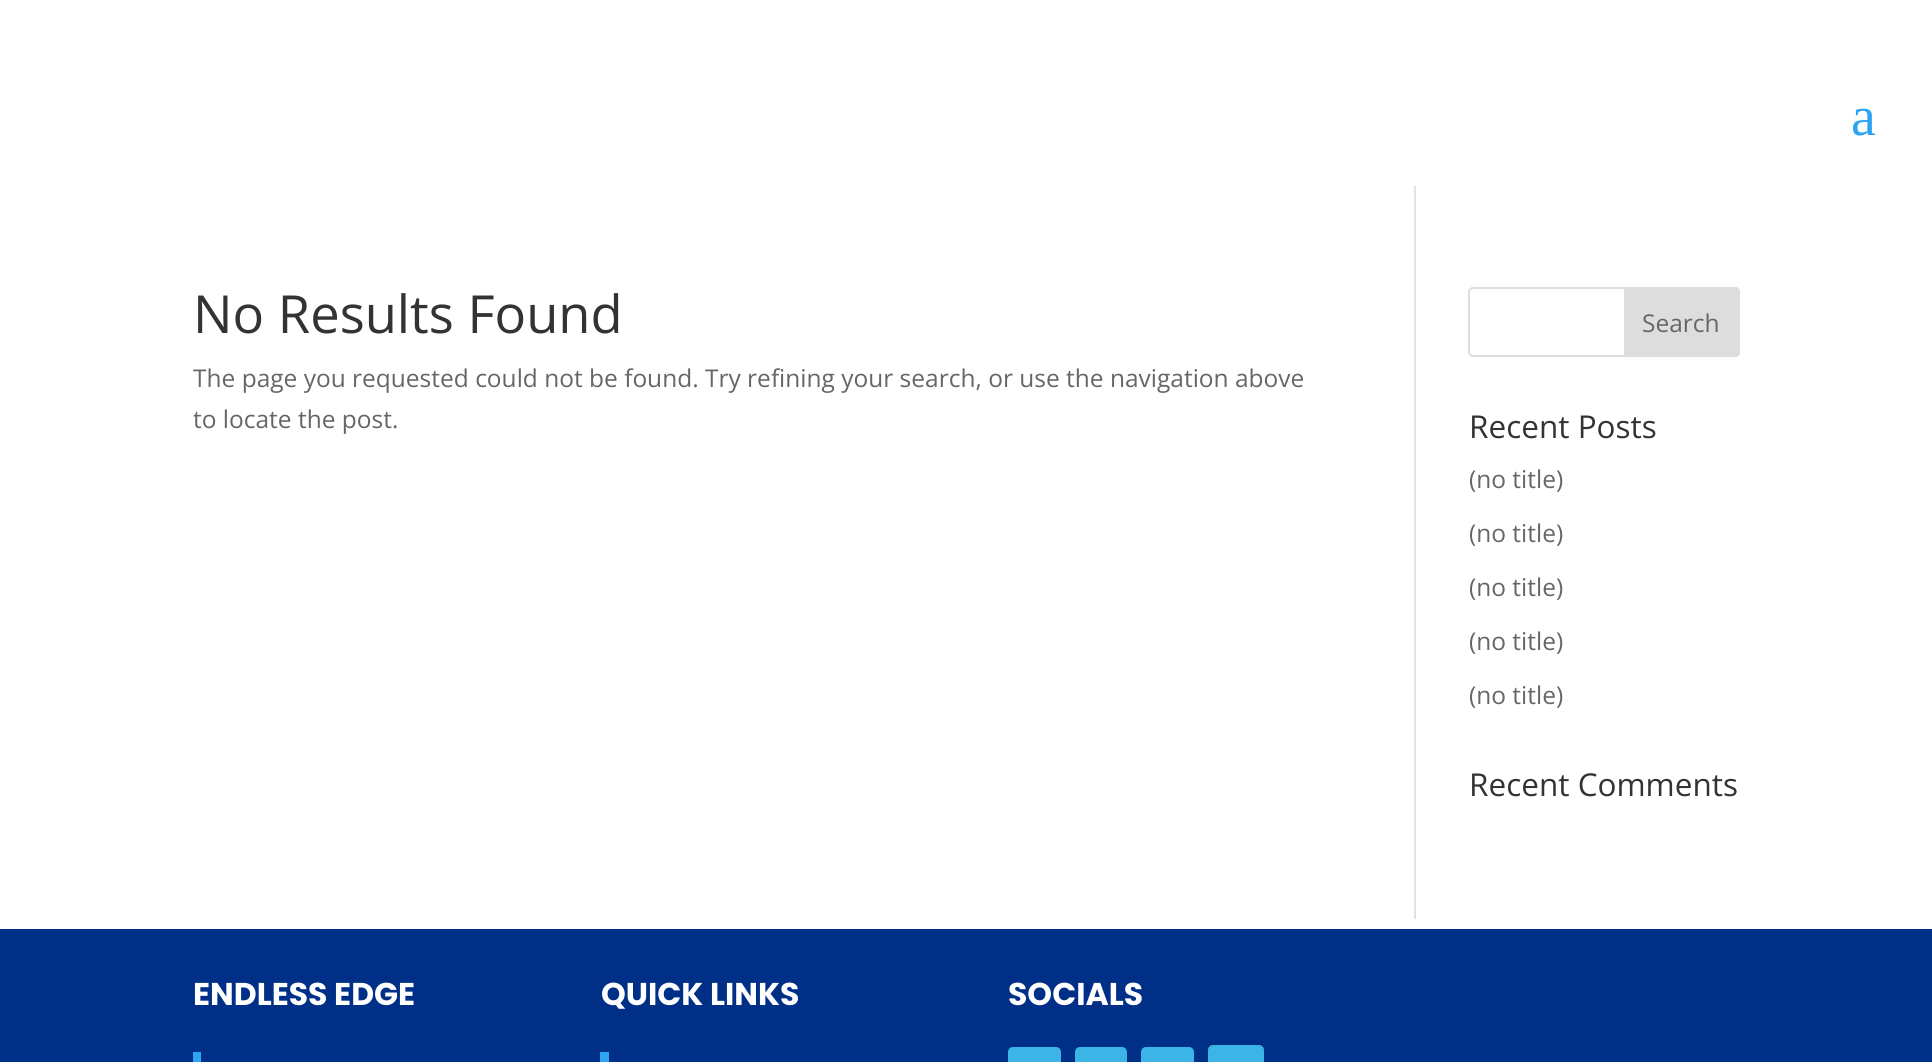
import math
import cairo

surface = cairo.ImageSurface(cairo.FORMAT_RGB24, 1932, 1062)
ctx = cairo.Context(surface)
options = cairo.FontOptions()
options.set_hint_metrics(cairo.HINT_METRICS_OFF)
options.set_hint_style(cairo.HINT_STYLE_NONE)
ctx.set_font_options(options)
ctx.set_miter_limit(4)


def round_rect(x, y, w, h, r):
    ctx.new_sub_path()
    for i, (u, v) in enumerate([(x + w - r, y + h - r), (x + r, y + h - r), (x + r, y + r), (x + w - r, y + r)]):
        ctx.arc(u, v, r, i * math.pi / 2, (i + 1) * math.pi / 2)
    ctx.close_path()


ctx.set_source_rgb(1, 1, 1)
ctx.paint()
ctx.select_font_face("Liberation Serif")
ctx.set_font_size(56)
ctx.set_source_rgb(0.18, 0.639, 0.949)
ctx.move_to(1851, 135)
ctx.show_text("a")
ctx.set_source_rgb(0.886, 0.886, 0.886)
ctx.rectangle(1414, 186, 2, 733)
ctx.fill()
ctx.select_font_face("Open Sans")
ctx.set_font_size(52.5)
ctx.set_source_rgb(0.2, 0.2, 0.2)
ctx.move_to(193, 333)
ctx.show_text("No Results Found")
ctx.set_font_size(24.5)
ctx.set_source_rgb(0.4, 0.4, 0.4)
ctx.move_to(193, 387)
ctx.show_text("The page you requested could not be found. Try refining your search, or use the navigation above")
ctx.move_to(193, 428)
ctx.show_text("to locate the post.")
round_rect(1469, 288, 270, 68, 4)
ctx.set_source_rgb(0.867, 0.867, 0.867)
ctx.stroke()
ctx.new_path()
ctx.move_to(1625, 288)
ctx.line_to(1735, 288)
ctx.curve_to(1737, 288, 1739, 290, 1739, 292)
ctx.line_to(1739, 352)
ctx.curve_to(1739, 354, 1737, 356, 1735, 356)
ctx.line_to(1625, 356)
ctx.close_path()
ctx.fill_preserve()
ctx.stroke()
ctx.set_source_rgb(0.4, 0.4, 0.4)
ctx.move_to(1642, 332)
ctx.show_text("Search")
ctx.set_font_size(31.5)
ctx.set_source_rgb(0.2, 0.2, 0.2)
ctx.move_to(1469, 438)
ctx.show_text("Recent Posts")
ctx.set_font_size(24.5)
ctx.set_source_rgb(0.4, 0.4, 0.4)
ctx.move_to(1469, 488)
ctx.show_text("(no title)")
ctx.move_to(1469, 542)
ctx.show_text("(no title)")
ctx.move_to(1469, 596)
ctx.show_text("(no title)")
ctx.move_to(1469, 650)
ctx.show_text("(no title)")
ctx.move_to(1469, 704)
ctx.show_text("(no title)")
ctx.set_font_size(31.5)
ctx.set_source_rgb(0.2, 0.2, 0.2)
ctx.move_to(1469, 796)
ctx.show_text("Recent Comments")
ctx.set_source_rgb(0, 0.184, 0.529)
ctx.rectangle(0, 929, 1932, 133)
ctx.fill()
ctx.select_font_face("Poppins", cairo.FONT_SLANT_NORMAL, cairo.FONT_WEIGHT_BOLD)
ctx.set_source_rgb(1, 1, 1)
ctx.move_to(193, 1005)
ctx.show_text("ENDLESS EDGE")
ctx.set_source_rgb(0.18, 0.639, 0.949)
ctx.rectangle(193, 1052, 8, 10)
ctx.fill()
ctx.set_source_rgb(1, 1, 1)
ctx.move_to(601, 1005)
ctx.show_text("QUICK LINKS")
ctx.set_source_rgb(0.18, 0.639, 0.949)
ctx.rectangle(600, 1052, 9, 10)
ctx.fill()
ctx.set_source_rgb(1, 1, 1)
ctx.move_to(1008, 1005)
ctx.show_text("SOCIALS")
ctx.set_source_rgb(0.235, 0.706, 0.898)
round_rect(1008, 1047, 53, 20, 5)
ctx.fill()
round_rect(1075, 1047, 52, 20, 5)
ctx.fill()
round_rect(1141, 1047, 53, 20, 5)
ctx.fill()
round_rect(1208, 1045, 56, 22, 5)
ctx.fill()
surface.write_to_png("page.png")
